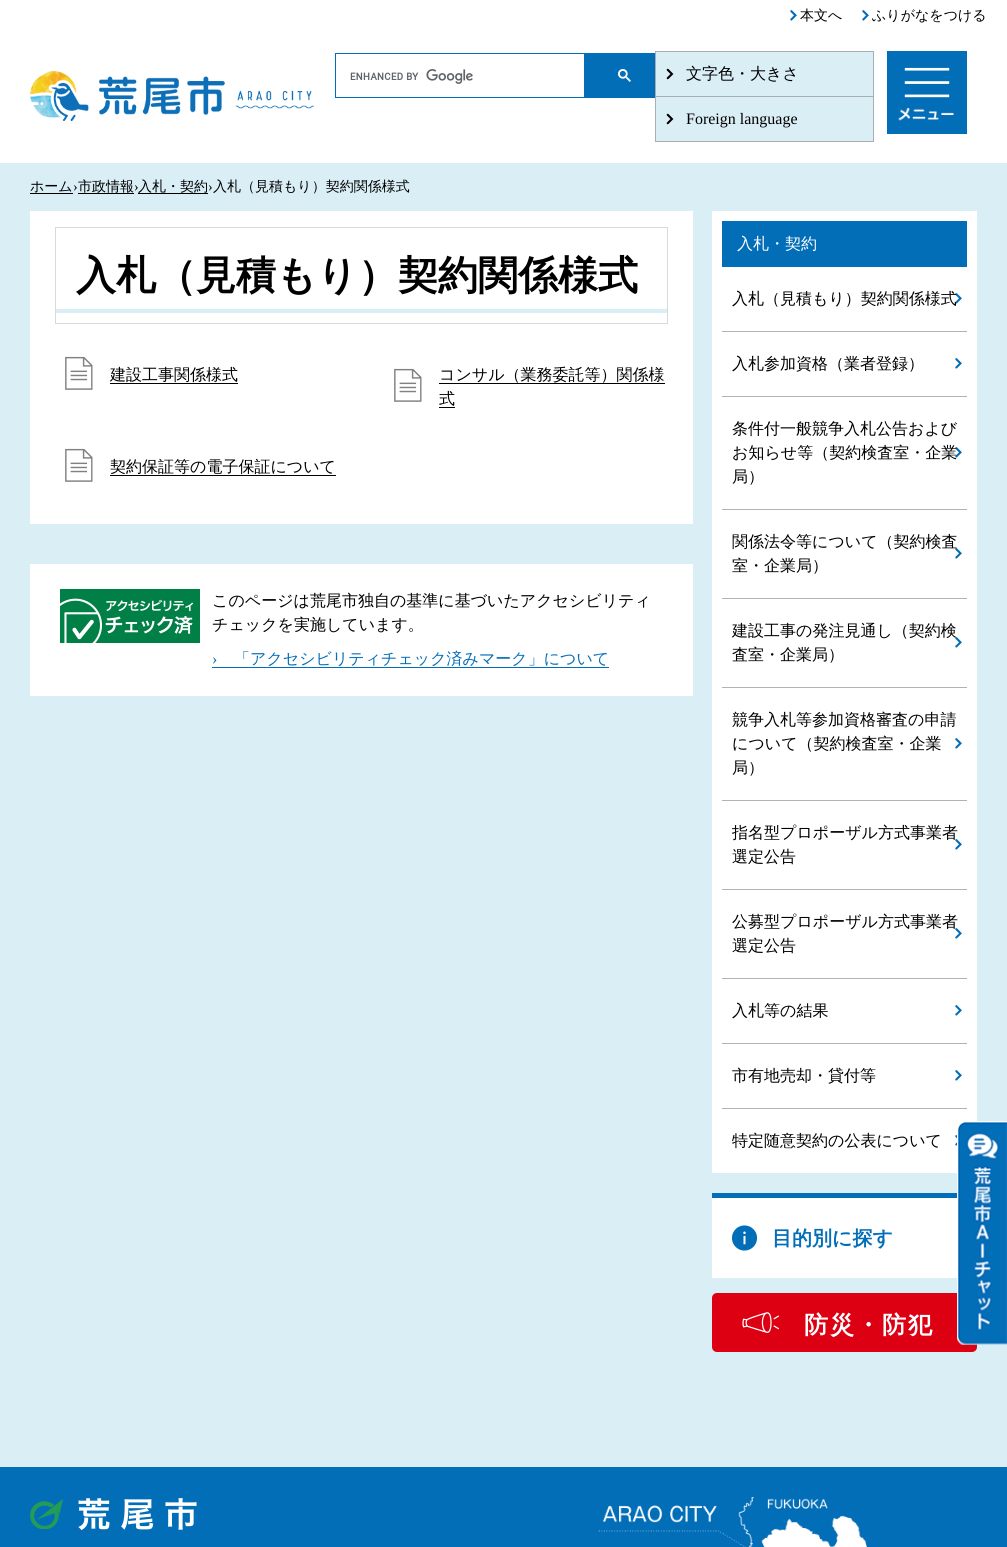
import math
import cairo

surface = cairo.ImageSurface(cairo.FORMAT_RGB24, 1007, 1547)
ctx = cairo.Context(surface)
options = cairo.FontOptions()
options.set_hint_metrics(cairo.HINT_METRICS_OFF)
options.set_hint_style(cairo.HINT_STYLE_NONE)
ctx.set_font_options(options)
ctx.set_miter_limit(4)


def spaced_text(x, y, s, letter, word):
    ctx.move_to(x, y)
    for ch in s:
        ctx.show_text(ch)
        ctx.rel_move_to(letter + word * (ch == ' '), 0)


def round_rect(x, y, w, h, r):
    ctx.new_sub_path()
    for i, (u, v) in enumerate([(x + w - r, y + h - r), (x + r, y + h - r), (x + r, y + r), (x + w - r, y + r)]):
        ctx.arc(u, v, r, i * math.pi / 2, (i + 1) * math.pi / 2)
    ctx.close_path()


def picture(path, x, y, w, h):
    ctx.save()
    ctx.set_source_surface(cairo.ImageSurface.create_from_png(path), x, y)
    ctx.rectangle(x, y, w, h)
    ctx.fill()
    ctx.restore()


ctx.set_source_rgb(1, 1, 1)
ctx.paint()
picture("img1.png", 790, 10, 7, 11)
ctx.select_font_face("WenQuanYi Zen Hei Medium")
ctx.set_font_size(14)
ctx.set_source_rgb(0, 0, 0)
ctx.move_to(800, 20)
ctx.show_text("本文へ")
picture("img1.png", 862, 10, 7, 11)
ctx.move_to(872, 20)
ctx.show_text("ふりがなをつける")
picture("img2.png", 30, 71, 284, 50)
ctx.rectangle(335.5, 53.5, 329, 44)
ctx.set_source_rgb(0.012, 0.431, 0.722)
ctx.set_line_width(1)
ctx.stroke()
picture("img3.png", 350, 69, 123, 15)
ctx.rectangle(584, 54, 71, 43)
ctx.fill()
picture("img4.png", 618, 69, 13, 13)
ctx.set_source_rgb(0.651, 0.686, 0.702)
ctx.rectangle(655, 51, 219, 1)
ctx.fill()
ctx.set_source_rgb(0.855, 0.933, 0.961)
ctx.rectangle(656, 52, 217, 44)
ctx.fill()
picture("img5.png", 666, 68, 8, 12)
ctx.set_source_rgb(0.651, 0.686, 0.702)
ctx.rectangle(873, 52, 1, 90)
ctx.fill()
ctx.rectangle(655, 96, 219, 1)
ctx.fill()
ctx.rectangle(655, 52, 1, 45)
ctx.fill()
ctx.set_font_size(16)
ctx.set_source_rgb(0, 0, 0)
ctx.move_to(686, 79)
ctx.show_text("文字色・大きさ")
ctx.set_source_rgb(0.855, 0.933, 0.961)
ctx.rectangle(656, 97, 217, 44)
ctx.fill()
picture("img5.png", 666, 113, 8, 12)
ctx.set_source_rgb(0.651, 0.686, 0.702)
ctx.rectangle(655, 141, 219, 1)
ctx.fill()
ctx.rectangle(655, 97, 1, 45)
ctx.fill()
ctx.select_font_face("Liberation Serif")
ctx.set_source_rgb(0, 0, 0)
ctx.move_to(686, 124)
ctx.show_text("Foreign language")
ctx.set_source_rgb(0.012, 0.431, 0.722)
ctx.rectangle(887, 51, 80, 83)
ctx.fill()
picture("img6.png", 898, 67, 56, 54)
ctx.set_source_rgb(0.855, 0.933, 0.961)
ctx.rectangle(0, 163, 1007, 1304)
ctx.fill()
ctx.select_font_face("WenQuanYi Zen Hei Medium")
ctx.set_font_size(14)
ctx.set_source_rgb(0, 0, 0)
ctx.move_to(30, 191)
ctx.show_text("ホーム")
ctx.rectangle(30, 193, 43, 1)
ctx.fill()
ctx.select_font_face("Liberation Serif")
ctx.move_to(73, 191)
ctx.show_text("›")
ctx.select_font_face("WenQuanYi Zen Hei Medium")
ctx.move_to(78, 191)
ctx.show_text("市政情報")
ctx.rectangle(78, 193, 56, 1)
ctx.fill()
ctx.select_font_face("Liberation Serif")
ctx.move_to(134, 191)
ctx.show_text("›")
ctx.rectangle(138, 193, 70, 1)
ctx.fill()
ctx.select_font_face("WenQuanYi Zen Hei Medium")
ctx.move_to(138, 191)
ctx.show_text("入札・契約")
ctx.select_font_face("Liberation Serif")
ctx.move_to(208, 191)
ctx.show_text("›")
ctx.select_font_face("WenQuanYi Zen Hei Medium")
ctx.move_to(213, 191)
ctx.show_text("入札（見積もり）契約関係様式")
ctx.set_source_rgb(1, 1, 1)
ctx.rectangle(30, 211, 663, 313)
ctx.fill()
ctx.rectangle(55.5, 227.5, 612, 96)
ctx.set_source_rgb(0.851, 0.851, 0.851)
ctx.stroke()
ctx.set_source_rgb(0.855, 0.933, 0.961)
ctx.rectangle(56, 309, 611, 4)
ctx.fill()
ctx.select_font_face("WenQuanYi Zen Hei", cairo.FONT_SLANT_NORMAL, cairo.FONT_WEIGHT_BOLD)
ctx.set_font_size(40)
ctx.set_source_rgb(0, 0, 0)
ctx.move_to(76, 289)
ctx.show_text("入札（見積もり）契約関係様式")
picture("img7.png", 65, 356, 28, 34)
ctx.select_font_face("WenQuanYi Zen Hei Medium")
ctx.set_font_size(16)
ctx.move_to(110, 380)
ctx.show_text("建設工事関係様式")
ctx.rectangle(110, 383, 128, 1)
ctx.fill()
picture("img7.png", 394, 368, 28, 34)
ctx.move_to(439, 380)
ctx.show_text("コンサル（業務委託等）関係様")
ctx.rectangle(439, 383, 226, 1)
ctx.fill()
ctx.move_to(439, 404)
ctx.show_text("式")
ctx.rectangle(439, 407, 16, 1)
ctx.fill()
picture("img7.png", 65, 448, 28, 34)
ctx.move_to(110, 472)
ctx.show_text("契約保証等の電子保証について")
ctx.rectangle(110, 475, 226, 1)
ctx.fill()
ctx.set_source_rgb(1, 1, 1)
ctx.rectangle(30, 564, 663, 132)
ctx.fill()
picture("img8.png", 60, 589, 140, 54)
ctx.set_source_rgb(0, 0, 0)
ctx.move_to(212, 606)
ctx.show_text("このページは荒尾市独自の基準に基づいたアクセシビリティ")
ctx.move_to(212, 630)
ctx.show_text("チェックを実施しています。")
ctx.select_font_face("Liberation Serif")
ctx.set_source_rgb(0.012, 0.431, 0.722)
ctx.move_to(212, 664)
ctx.show_text("›")
ctx.rectangle(212, 667, 397, 1)
ctx.fill()
ctx.select_font_face("WenQuanYi Zen Hei Medium")
ctx.move_to(234, 664)
ctx.show_text("「アクセシビリティチェック済みマーク」について")
ctx.set_source_rgb(1, 1, 1)
ctx.rectangle(712, 211, 265, 962)
ctx.fill()
ctx.set_source_rgb(0.012, 0.431, 0.722)
ctx.rectangle(722, 221, 245, 46)
ctx.fill()
ctx.set_source_rgb(1, 1, 1)
ctx.move_to(737, 249)
ctx.show_text("入札・契約")
ctx.set_source_rgb(0.698, 0.698, 0.698)
ctx.rectangle(722, 331, 245, 1)
ctx.fill()
picture("img1.png", 955, 293, 7, 11)
ctx.set_source_rgb(0, 0, 0)
ctx.move_to(732, 304)
ctx.show_text("入札（見積もり）契約関係様式")
ctx.set_source_rgb(0.698, 0.698, 0.698)
ctx.rectangle(722, 396, 245, 1)
ctx.fill()
picture("img1.png", 955, 358, 7, 11)
ctx.set_source_rgb(0, 0, 0)
ctx.move_to(732, 369)
ctx.show_text("入札参加資格（業者登録）")
ctx.set_source_rgb(0.698, 0.698, 0.698)
ctx.rectangle(722, 509, 245, 1)
ctx.fill()
picture("img1.png", 955, 447, 7, 11)
ctx.set_source_rgb(0, 0, 0)
ctx.move_to(732, 434)
ctx.show_text("条件付一般競争入札公告および")
ctx.move_to(732, 458)
ctx.show_text("お知らせ等（契約検査室・企業")
ctx.move_to(732, 482)
ctx.show_text("局）")
ctx.set_source_rgb(0.698, 0.698, 0.698)
ctx.rectangle(722, 598, 245, 1)
ctx.fill()
picture("img1.png", 955, 548, 7, 11)
ctx.set_source_rgb(0, 0, 0)
ctx.move_to(732, 547)
ctx.show_text("関係法令等について（契約検査")
ctx.move_to(732, 571)
ctx.show_text("室・企業局）")
ctx.set_source_rgb(0.698, 0.698, 0.698)
ctx.rectangle(722, 687, 245, 1)
ctx.fill()
picture("img1.png", 955, 637, 7, 11)
ctx.set_source_rgb(0, 0, 0)
ctx.move_to(732, 636)
ctx.show_text("建設工事の発注見通し（契約検")
ctx.move_to(732, 660)
ctx.show_text("査室・企業局）")
ctx.set_source_rgb(0.698, 0.698, 0.698)
ctx.rectangle(722, 800, 245, 1)
ctx.fill()
picture("img1.png", 955, 738, 7, 11)
ctx.set_source_rgb(0, 0, 0)
ctx.move_to(732, 725)
ctx.show_text("競争入札等参加資格審査の申請")
ctx.move_to(732, 749)
ctx.show_text("について（契約検査室・企業")
ctx.move_to(732, 773)
ctx.show_text("局）")
ctx.set_source_rgb(0.698, 0.698, 0.698)
ctx.rectangle(722, 889, 245, 1)
ctx.fill()
picture("img1.png", 955, 839, 7, 11)
ctx.set_source_rgb(0, 0, 0)
ctx.move_to(732, 838)
ctx.show_text("指名型プロポーザル方式事業者")
ctx.move_to(732, 862)
ctx.show_text("選定公告")
ctx.set_source_rgb(0.698, 0.698, 0.698)
ctx.rectangle(722, 978, 245, 1)
ctx.fill()
picture("img1.png", 955, 928, 7, 11)
ctx.set_source_rgb(0, 0, 0)
ctx.move_to(732, 927)
ctx.show_text("公募型プロポーザル方式事業者")
ctx.move_to(732, 951)
ctx.show_text("選定公告")
ctx.set_source_rgb(0.698, 0.698, 0.698)
ctx.rectangle(722, 1043, 245, 1)
ctx.fill()
picture("img1.png", 955, 1005, 7, 11)
ctx.set_source_rgb(0, 0, 0)
ctx.move_to(732, 1016)
ctx.show_text("入札等の結果")
ctx.set_source_rgb(0.698, 0.698, 0.698)
ctx.rectangle(722, 1108, 245, 1)
ctx.fill()
picture("img1.png", 955, 1070, 7, 11)
ctx.set_source_rgb(0, 0, 0)
ctx.move_to(732, 1081)
ctx.show_text("市有地売却・貸付等")
picture("img9.png", 955, 1135, 3, 11)
ctx.move_to(732, 1146)
ctx.show_text("特定随意契約の公表について")
ctx.set_source_rgb(0.012, 0.431, 0.722)
ctx.rectangle(712, 1193, 246, 5)
ctx.fill()
ctx.set_source_rgb(1, 1, 1)
ctx.rectangle(712, 1198, 246, 80)
ctx.fill()
picture("img10.png", 732, 1225, 25, 26)
ctx.select_font_face("WenQuanYi Zen Hei", cairo.FONT_SLANT_NORMAL, cairo.FONT_WEIGHT_BOLD)
ctx.set_font_size(20)
ctx.set_source_rgb(0.012, 0.431, 0.722)
ctx.move_to(772, 1245)
ctx.show_text("目的別に探す")
ctx.set_source_rgb(0.863, 0, 0.071)
round_rect(712, 1293, 265, 59, 5)
ctx.fill()
picture("img11.png", 742, 1312, 37, 21)
ctx.set_font_size(24)
ctx.set_source_rgb(1, 1, 1)
spaced_text(804, 1333, "防災・防犯", 2, 0)
picture("img12.png", 957, 1121, 50, 224)
ctx.set_source_rgb(0.012, 0.431, 0.722)
ctx.rectangle(0, 1467, 1007, 80)
ctx.fill()
picture("img13.png", 30, 1498, 167, 32)
picture("img14.png", 598, 1497, 269, 50)
surface.write_to_png("page.png")
